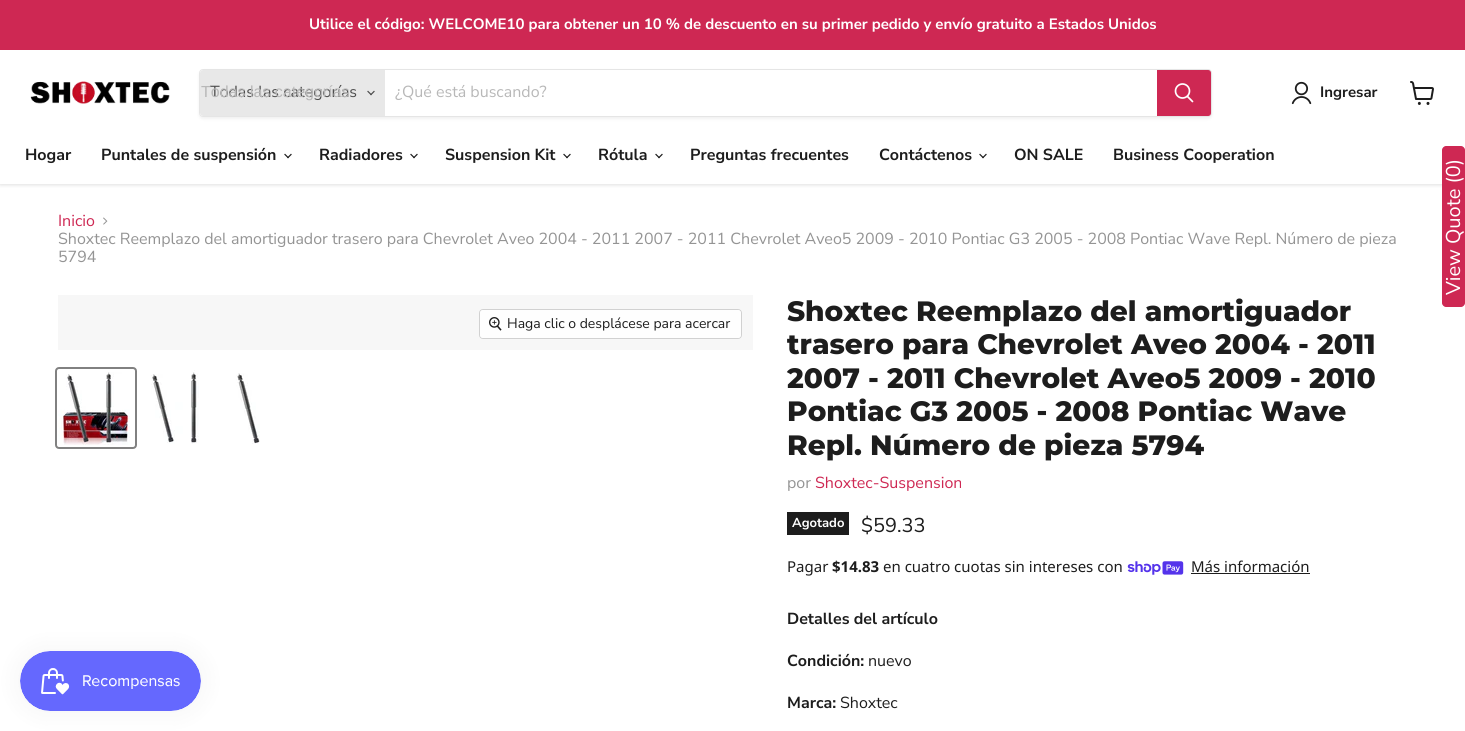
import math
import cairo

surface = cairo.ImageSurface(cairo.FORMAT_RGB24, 1465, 731)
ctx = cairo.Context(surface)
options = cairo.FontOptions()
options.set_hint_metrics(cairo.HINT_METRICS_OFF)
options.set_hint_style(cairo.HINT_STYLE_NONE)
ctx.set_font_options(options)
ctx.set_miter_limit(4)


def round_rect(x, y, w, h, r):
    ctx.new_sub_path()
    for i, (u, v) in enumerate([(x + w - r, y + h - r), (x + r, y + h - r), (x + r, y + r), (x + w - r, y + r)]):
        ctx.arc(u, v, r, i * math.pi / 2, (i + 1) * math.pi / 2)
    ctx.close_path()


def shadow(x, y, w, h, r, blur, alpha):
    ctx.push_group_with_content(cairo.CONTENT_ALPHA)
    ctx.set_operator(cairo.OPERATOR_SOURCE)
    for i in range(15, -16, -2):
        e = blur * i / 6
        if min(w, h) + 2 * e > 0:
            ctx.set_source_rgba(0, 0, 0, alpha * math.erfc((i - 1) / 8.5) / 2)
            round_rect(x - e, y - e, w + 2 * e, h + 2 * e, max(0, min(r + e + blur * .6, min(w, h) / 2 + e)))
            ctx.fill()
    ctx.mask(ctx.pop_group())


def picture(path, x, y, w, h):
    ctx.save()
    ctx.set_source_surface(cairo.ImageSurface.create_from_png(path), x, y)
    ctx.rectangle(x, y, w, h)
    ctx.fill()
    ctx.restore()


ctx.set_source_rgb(1, 1, 1)
ctx.paint()
ctx.save()
ctx.rectangle(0, 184, 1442, 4)
ctx.clip()
ctx.set_source_rgb(0.502, 0.502, 0.502)
shadow(0, 51, 1465, 134, 0, 2, 0.25)
ctx.restore()
ctx.set_source_rgb(0.808, 0.157, 0.325)
ctx.rectangle(0, 0, 1465, 50)
ctx.fill()
ctx.select_font_face("Nunito Sans", cairo.FONT_SLANT_NORMAL, cairo.FONT_WEIGHT_BOLD)
ctx.set_font_size(15)
ctx.set_source_rgb(1, 1, 1)
ctx.move_to(309, 29)
ctx.show_text("Utilice el código: WELCOME10 para obtener un 10 % de descuento en su primer pedido y envío gratuito a Estados Unidos")
picture("img1.png", 30, 81, 140, 23)
ctx.save()
ctx.set_fill_rule(cairo.FILL_RULE_EVEN_ODD)
ctx.new_path()
ctx.move_to(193, 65)
ctx.line_to(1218, 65)
ctx.line_to(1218, 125)
ctx.line_to(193, 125)
ctx.close_path()
ctx.move_to(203, 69)
ctx.line_to(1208, 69)
ctx.curve_to(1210, 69, 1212, 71, 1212, 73)
ctx.line_to(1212, 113)
ctx.curve_to(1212, 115, 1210, 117, 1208, 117)
ctx.line_to(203, 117)
ctx.curve_to(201, 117, 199, 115, 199, 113)
ctx.line_to(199, 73)
ctx.curve_to(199, 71, 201, 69, 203, 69)
ctx.close_path()
ctx.clip()
ctx.set_source_rgb(0.502, 0.502, 0.502)
shadow(199, 71, 1013, 48, 4, 1.5, 0.11)
ctx.restore()
round_rect(199.5, 69.5, 1012, 47, 3.5)
ctx.set_source_rgba(0.502, 0.502, 0.502, 0.2)
ctx.set_line_width(1)
ctx.stroke()
ctx.set_source_rgb(0.91, 0.91, 0.91)
ctx.new_path()
ctx.move_to(203, 70)
ctx.line_to(385, 70)
ctx.line_to(385, 116)
ctx.line_to(203, 116)
ctx.curve_to(201.5, 116, 200, 114.5, 200, 113)
ctx.line_to(200, 73)
ctx.curve_to(200, 71.5, 201.5, 70, 203, 70)
ctx.close_path()
ctx.fill()
ctx.select_font_face("Nunito Sans")
ctx.set_font_size(16)
ctx.set_source_rgb(0.302, 0.302, 0.302)
ctx.move_to(210, 97)
ctx.show_text("Todas las categorías")
ctx.select_font_face("Liberation Sans")
ctx.set_source_rgb(0.722, 0.722, 0.722)
ctx.move_to(201, 97)
ctx.show_text("Todas las categorías")
picture("img2.png", 367, 90, 8, 6)
ctx.select_font_face("Nunito Sans")
ctx.move_to(395, 97)
ctx.show_text("¿Qué está buscando?")
ctx.set_source_rgb(0.808, 0.157, 0.325)
ctx.new_path()
ctx.move_to(1157.5, 70.5)
ctx.line_to(1208, 70.5)
ctx.curve_to(1209.5, 70.5, 1210.5, 71.5, 1210.5, 73)
ctx.line_to(1210.5, 113)
ctx.curve_to(1210.5, 114.5, 1209.5, 115.5, 1208, 115.5)
ctx.line_to(1157.5, 115.5)
ctx.close_path()
ctx.fill_preserve()
ctx.stroke()
ctx.new_path()
ctx.move_to(1192.5, 101.5)
ctx.line_to(1187.5, 96.5)
ctx.set_source_rgb(1, 1, 1)
ctx.set_line_width(1.7)
ctx.set_line_cap(cairo.LINE_CAP_ROUND)
ctx.stroke()
ctx.arc(1182.5, 91, 7, 0, 2 * math.pi)
ctx.set_line_cap(cairo.LINE_CAP_BUTT)
ctx.stroke()
picture("img3.png", 1291, 81, 21, 24)
ctx.select_font_face("Nunito Sans", cairo.FONT_SLANT_NORMAL, cairo.FONT_WEIGHT_BOLD)
ctx.set_font_size(15)
ctx.set_source_rgb(0.114, 0.114, 0.114)
ctx.move_to(1320, 97)
ctx.show_text("Ingresar")
picture("img4.png", 1410, 81, 24, 24)
ctx.set_font_size(16)
ctx.move_to(25, 160)
ctx.show_text("Hogar")
ctx.move_to(101, 160)
ctx.show_text("Puntales de suspensión")
picture("img5.png", 284, 153, 8, 6)
ctx.move_to(319, 160)
ctx.show_text("Radiadores")
picture("img5.png", 410, 153, 8, 6)
ctx.move_to(445, 160)
ctx.show_text("Suspension Kit")
picture("img5.png", 563, 153, 8, 6)
ctx.move_to(598, 160)
ctx.show_text("Rótula")
picture("img5.png", 655, 153, 8, 6)
ctx.move_to(690, 160)
ctx.show_text("Preguntas frecuentes")
ctx.move_to(879, 160)
ctx.show_text("Contáctenos")
picture("img5.png", 979, 153, 8, 6)
ctx.move_to(1014, 160)
ctx.show_text("ON SALE")
ctx.move_to(1113, 160)
ctx.show_text("Business Cooperation")
ctx.select_font_face("Nunito Sans")
ctx.set_source_rgb(0.808, 0.157, 0.325)
ctx.move_to(58, 226)
ctx.show_text("Inicio")
picture("img6.png", 103, 217, 5, 8)
ctx.set_source_rgb(0.58, 0.58, 0.58)
ctx.move_to(58, 244)
ctx.show_text("Shoxtec Reemplazo del amortiguador trasero para Chevrolet Aveo 2004 - 2011 2007 - 2011 Chevrolet Aveo5 2009 - 2010 Pontiac G3 2005 - 2008 Pontiac Wave Repl. Número de pieza")
ctx.move_to(58, 262)
ctx.show_text("5794")
ctx.set_source_rgb(0.965, 0.965, 0.965)
ctx.rectangle(58, 295, 695, 55)
ctx.fill()
round_rect(479.5, 309.5, 262, 29, 3.5)
ctx.set_source_rgb(0.82, 0.82, 0.82)
ctx.set_line_width(1)
ctx.stroke()
ctx.set_source_rgba(1, 1, 1, 0.9)
round_rect(480, 310, 261, 28, 3)
ctx.fill()
picture("img7.png", 489, 317, 13, 14)
ctx.set_font_size(14)
ctx.set_source_rgb(0.114, 0.114, 0.114)
ctx.move_to(507, 328)
ctx.show_text("Haga clic o desplácese para acercar")
round_rect(56, 368, 80, 80, 3)
ctx.set_source_rgb(0.506, 0.506, 0.506)
ctx.set_line_width(2)
ctx.stroke()
picture("img8.png", 58, 372, 72, 73)
picture("img9.png", 151, 370, 48, 74)
picture("img10.png", 236, 373, 24, 71)
ctx.select_font_face("Montserrat ExtraBold")
ctx.set_font_size(28)
ctx.set_source_rgb(0.114, 0.114, 0.114)
ctx.move_to(787, 321)
ctx.show_text("Shoxtec Reemplazo del amortiguador")
ctx.move_to(787, 354)
ctx.show_text("trasero para Chevrolet Aveo 2004 - 2011")
ctx.move_to(787, 388)
ctx.show_text("2007 - 2011 Chevrolet Aveo5 2009 - 2010")
ctx.move_to(787, 421)
ctx.show_text("Pontiac G3 2005 - 2008 Pontiac Wave")
ctx.move_to(787, 455)
ctx.show_text("Repl. Número de pieza 5794")
ctx.select_font_face("Nunito Sans")
ctx.set_font_size(16)
ctx.set_source_rgb(0.58, 0.58, 0.58)
ctx.move_to(787, 488)
ctx.show_text("por")
ctx.set_source_rgb(0.808, 0.157, 0.325)
ctx.move_to(815, 488)
ctx.show_text("Shoxtec-Suspension")
ctx.set_source_rgb(0.114, 0.114, 0.114)
ctx.rectangle(787, 512, 62, 23)
ctx.fill()
ctx.select_font_face("Nunito Sans", cairo.FONT_SLANT_NORMAL, cairo.FONT_WEIGHT_BOLD)
ctx.set_font_size(13)
ctx.set_source_rgb(1, 1, 1)
ctx.move_to(792, 527)
ctx.show_text("Agotado")
ctx.select_font_face("Nunito Sans")
ctx.set_font_size(20)
ctx.set_source_rgb(0.114, 0.114, 0.114)
ctx.move_to(861, 532)
ctx.show_text("$59.33")
ctx.select_font_face("Noto Sans")
ctx.set_font_size(15)
ctx.move_to(787, 572)
ctx.show_text("Pagar")
ctx.select_font_face("Noto Sans", cairo.FONT_SLANT_NORMAL, cairo.FONT_WEIGHT_BOLD)
ctx.move_to(832, 572)
ctx.show_text("$14.83")
ctx.select_font_face("Noto Sans")
ctx.move_to(883, 572)
ctx.show_text("en cuatro cuotas sin intereses con")
picture("img11.png", 1127, 561, 57, 14)
ctx.move_to(1191, 572)
ctx.show_text("Más información")
ctx.rectangle(1191, 573, 119, 1)
ctx.fill()
ctx.select_font_face("Nunito Sans", cairo.FONT_SLANT_NORMAL, cairo.FONT_WEIGHT_BOLD)
ctx.set_font_size(16)
ctx.move_to(787, 624)
ctx.show_text("Detalles del artículo")
ctx.move_to(787, 666)
ctx.show_text("Condición:")
ctx.select_font_face("Nunito Sans")
ctx.move_to(868, 666)
ctx.show_text("nuevo")
ctx.select_font_face("Nunito Sans", cairo.FONT_SLANT_NORMAL, cairo.FONT_WEIGHT_BOLD)
ctx.move_to(787, 708)
ctx.show_text("Marca:")
ctx.select_font_face("Nunito Sans")
ctx.move_to(840, 708)
ctx.show_text("Shoxtec")
ctx.set_source_rgb(0.808, 0.157, 0.325)
ctx.new_path()
ctx.move_to(1442, 303)
ctx.line_to(1442, 150)
ctx.curve_to(1442, 148, 1444, 146, 1446, 146)
ctx.line_to(1461, 146)
ctx.curve_to(1463, 146, 1465, 148, 1465, 150)
ctx.line_to(1465, 303)
ctx.curve_to(1465, 305, 1463, 307, 1461, 307)
ctx.line_to(1446, 307)
ctx.curve_to(1444, 307, 1442, 305, 1442, 303)
ctx.close_path()
ctx.fill()
ctx.set_font_size(20)
ctx.set_source_rgb(1, 1, 1)
ctx.save()
ctx.translate(1460, 295)
ctx.rotate(-90 * math.pi / 180)
ctx.move_to(0, 0)
ctx.show_text("View Quote (0)")
ctx.restore()
ctx.set_source_rgb(0, 0, 0)
shadow(20, 651, 181, 60, 30, 12.5, 0.05)
picture("img12.png", 20, 651, 181, 60)
surface.write_to_png("page.png")
